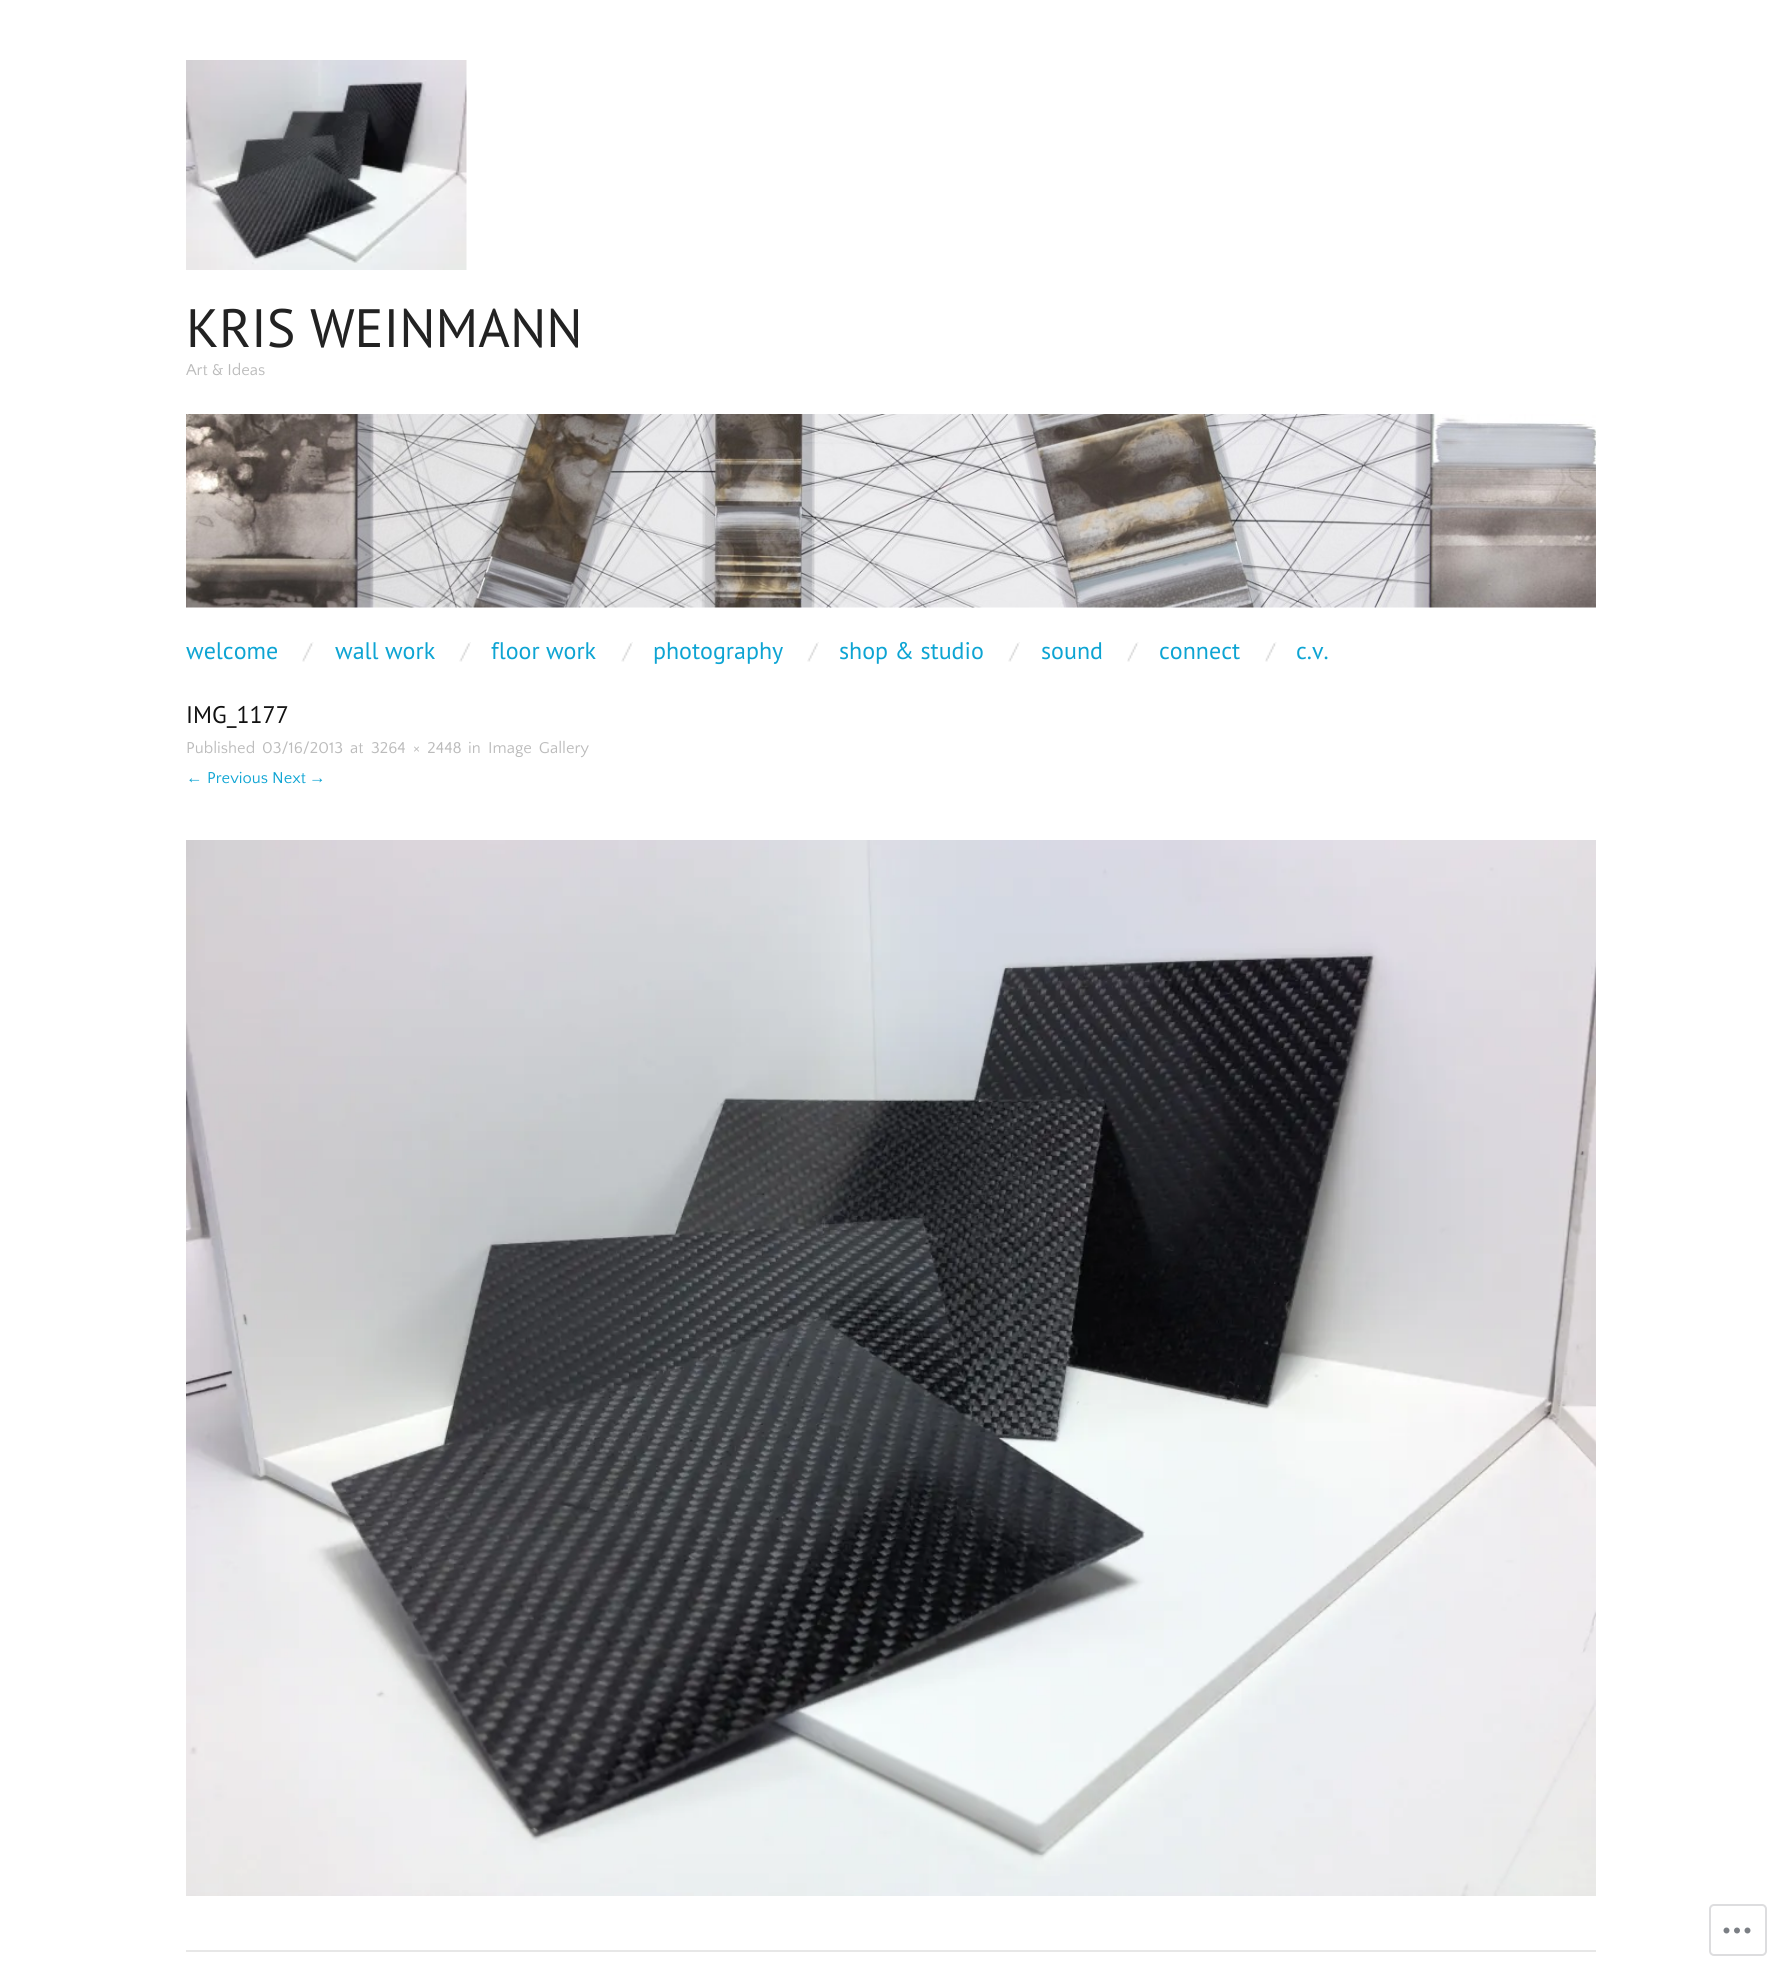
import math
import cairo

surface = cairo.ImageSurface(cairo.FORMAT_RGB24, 1781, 1971)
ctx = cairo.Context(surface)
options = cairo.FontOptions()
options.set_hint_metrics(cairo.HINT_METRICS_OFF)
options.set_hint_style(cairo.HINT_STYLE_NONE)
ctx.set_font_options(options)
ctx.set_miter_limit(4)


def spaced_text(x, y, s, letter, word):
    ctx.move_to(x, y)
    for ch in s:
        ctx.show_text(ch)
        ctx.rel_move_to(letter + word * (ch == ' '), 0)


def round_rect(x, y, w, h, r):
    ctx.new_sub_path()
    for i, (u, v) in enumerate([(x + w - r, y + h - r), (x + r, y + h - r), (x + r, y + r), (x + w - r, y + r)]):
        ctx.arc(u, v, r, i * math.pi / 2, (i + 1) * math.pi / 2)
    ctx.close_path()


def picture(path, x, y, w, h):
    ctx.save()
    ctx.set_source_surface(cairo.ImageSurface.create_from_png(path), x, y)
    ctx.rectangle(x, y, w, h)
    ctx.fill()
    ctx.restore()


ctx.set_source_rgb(1, 1, 1)
ctx.paint()
picture("img1.png", 186, 60, 281, 210)
ctx.select_font_face("PT Sans")
ctx.set_font_size(54)
ctx.set_source_rgb(0.133, 0.133, 0.133)
ctx.move_to(186, 347)
ctx.show_text("KRIS WEINMANN")
ctx.select_font_face("Quattrocento Sans")
ctx.set_font_size(16.5)
ctx.set_source_rgb(0.733, 0.733, 0.733)
ctx.move_to(186, 375)
ctx.show_text("Art & Ideas")
picture("img2.png", 186, 414, 1410, 194)
ctx.select_font_face("PT Sans")
ctx.set_font_size(24)
ctx.set_source_rgb(0.051, 0.643, 0.827)
ctx.move_to(186, 659)
ctx.show_text("welcome")
picture("img3.png", 302, 642, 12, 20)
ctx.move_to(335, 659)
ctx.show_text("wall work")
picture("img4.png", 459, 642, 12, 20)
ctx.move_to(491, 659)
ctx.show_text("floor work")
picture("img5.png", 621, 642, 12, 20)
ctx.move_to(653, 659)
ctx.show_text("photography")
picture("img5.png", 807, 642, 12, 20)
ctx.move_to(839, 659)
ctx.show_text("shop & studio")
picture("img5.png", 1008, 642, 12, 20)
ctx.move_to(1041, 659)
ctx.show_text("sound")
picture("img6.png", 1127, 642, 12, 20)
ctx.move_to(1159, 659)
ctx.show_text("connect")
picture("img3.png", 1265, 642, 12, 20)
ctx.move_to(1296, 659)
ctx.show_text("c.v.")
ctx.set_source_rgb(0.067, 0.067, 0.067)
ctx.move_to(186, 723)
ctx.show_text("IMG_1177")
ctx.select_font_face("Quattrocento Sans")
ctx.set_font_size(16.5)
ctx.set_source_rgb(0.733, 0.733, 0.733)
ctx.move_to(186, 753)
ctx.show_text("Published")
ctx.move_to(262, 753)
ctx.show_text("03/16/2013")
ctx.move_to(350, 753)
ctx.show_text("at")
spaced_text(371, 753, "3264 × 2448", 0, 3)
ctx.move_to(468, 753)
ctx.show_text("in")
spaced_text(488, 753, "Image Gallery", 0, 3)
ctx.select_font_face("Liberation Sans")
ctx.set_source_rgb(0.051, 0.643, 0.827)
ctx.move_to(186, 783)
ctx.show_text("←")
ctx.select_font_face("Quattrocento Sans")
ctx.move_to(207, 783)
ctx.show_text("Previous Next")
ctx.select_font_face("Liberation Sans")
ctx.move_to(309, 783)
ctx.show_text("→")
picture("img7.png", 186, 840, 1410, 1056)
ctx.set_source_rgb(0.906, 0.906, 0.906)
ctx.rectangle(186, 1950, 1410, 2)
ctx.fill()
round_rect(1710, 1905, 56, 50, 4)
ctx.set_source_rgb(0.867, 0.867, 0.875)
ctx.stroke()
picture("img8.png", 1723, 1927, 28, 7)
surface.write_to_png("page.png")
